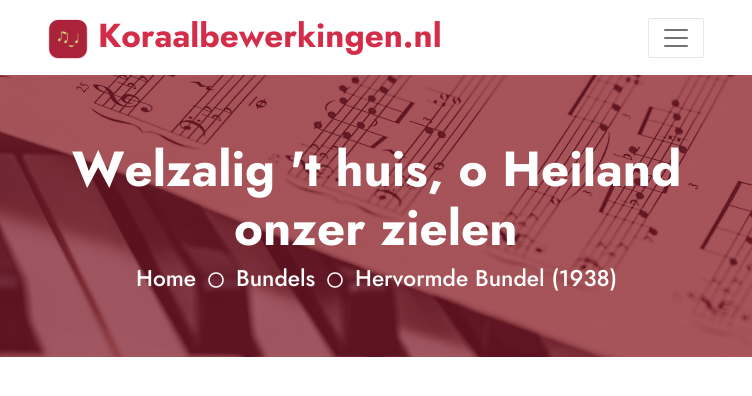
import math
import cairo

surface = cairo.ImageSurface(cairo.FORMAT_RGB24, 752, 396)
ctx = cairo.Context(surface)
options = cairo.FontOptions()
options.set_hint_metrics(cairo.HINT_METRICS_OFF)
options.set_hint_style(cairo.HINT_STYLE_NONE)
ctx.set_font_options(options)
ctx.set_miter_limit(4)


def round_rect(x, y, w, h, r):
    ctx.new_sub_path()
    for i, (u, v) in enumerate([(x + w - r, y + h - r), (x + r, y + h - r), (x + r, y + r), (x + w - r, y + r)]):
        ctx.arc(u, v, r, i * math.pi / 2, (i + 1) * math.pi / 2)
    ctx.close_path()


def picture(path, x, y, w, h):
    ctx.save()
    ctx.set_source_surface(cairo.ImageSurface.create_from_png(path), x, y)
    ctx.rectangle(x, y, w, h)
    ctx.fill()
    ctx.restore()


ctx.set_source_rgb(1, 1, 1)
ctx.paint()
picture("img1.png", 48, 19, 40, 40)
ctx.select_font_face("Jost", cairo.FONT_SLANT_NORMAL, cairo.FONT_WEIGHT_BOLD)
ctx.set_font_size(33.25)
ctx.set_source_rgb(0.831, 0.176, 0.286)
ctx.move_to(98, 47)
ctx.show_text("Koraalbewerkingen.nl")
round_rect(648.5, 18.5, 55, 39, 1.5)
ctx.set_source_rgb(0.902, 0.902, 0.902)
ctx.set_line_width(1)
ctx.stroke()
picture("img2.png", 664, 29, 24, 18)
picture("img3.png", 0, 75, 752, 282)
ctx.set_font_size(49.25)
ctx.set_source_rgb(1, 1, 1)
ctx.move_to(72, 186)
ctx.show_text("Welzalig 't huis, o Heiland")
ctx.move_to(234, 245)
ctx.show_text("onzer zielen")
ctx.select_font_face("Jost Medium")
ctx.set_font_size(22.7)
ctx.move_to(136, 286)
ctx.show_text("Home")
picture("img4.png", 208, 272, 16, 16)
ctx.move_to(236, 286)
ctx.show_text("Bundels")
picture("img5.png", 327, 272, 16, 16)
ctx.move_to(355, 286)
ctx.show_text("Hervormde Bundel (1938)")
picture("img6.png", 679, 320, 10, 5)
surface.write_to_png("page.png")
